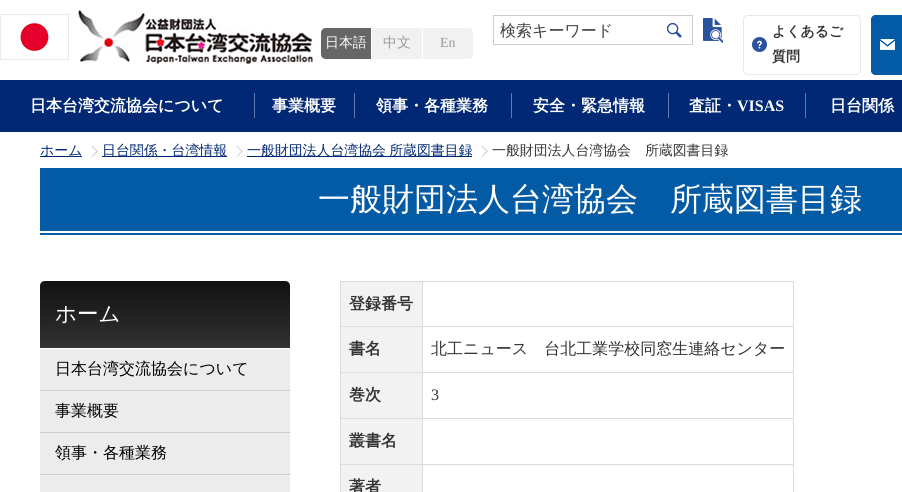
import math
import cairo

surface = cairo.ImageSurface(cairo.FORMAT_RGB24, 902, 492)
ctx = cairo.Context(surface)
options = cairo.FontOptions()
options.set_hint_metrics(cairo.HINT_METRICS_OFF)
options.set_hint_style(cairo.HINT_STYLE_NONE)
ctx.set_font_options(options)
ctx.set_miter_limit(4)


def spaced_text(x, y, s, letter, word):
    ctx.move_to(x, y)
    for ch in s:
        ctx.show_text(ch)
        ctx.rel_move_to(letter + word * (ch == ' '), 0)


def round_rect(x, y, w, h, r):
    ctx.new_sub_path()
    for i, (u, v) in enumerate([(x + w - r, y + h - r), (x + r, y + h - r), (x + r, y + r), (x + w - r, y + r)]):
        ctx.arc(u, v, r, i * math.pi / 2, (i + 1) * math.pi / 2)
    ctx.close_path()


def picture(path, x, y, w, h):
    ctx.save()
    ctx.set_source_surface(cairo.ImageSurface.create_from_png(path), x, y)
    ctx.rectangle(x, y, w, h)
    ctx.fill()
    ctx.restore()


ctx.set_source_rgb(1, 1, 1)
ctx.paint()
picture("img1.png", 0, 10, 313, 54)
ctx.set_source_rgb(0.4, 0.4, 0.4)
ctx.new_path()
ctx.move_to(326, 28)
ctx.line_to(371, 28)
ctx.line_to(371, 59)
ctx.line_to(326, 59)
ctx.curve_to(323, 59, 321, 57, 321, 54)
ctx.line_to(321, 33)
ctx.curve_to(321, 30, 323, 28, 326, 28)
ctx.close_path()
ctx.fill()
ctx.select_font_face("WenQuanYi Zen Hei Medium")
ctx.set_font_size(13.9)
ctx.set_source_rgb(1, 1, 1)
ctx.move_to(325, 47)
ctx.show_text("日本語")
ctx.set_source_rgb(0.945, 0.945, 0.945)
ctx.rectangle(372, 28, 50, 31)
ctx.fill()
ctx.set_source_rgb(0.6, 0.6, 0.6)
ctx.move_to(383, 47)
ctx.show_text("中文")
ctx.set_source_rgb(0.945, 0.945, 0.945)
ctx.new_path()
ctx.move_to(423, 28)
ctx.line_to(468, 28)
ctx.curve_to(471, 28, 473, 30, 473, 33)
ctx.line_to(473, 54)
ctx.curve_to(473, 57, 471, 59, 468, 59)
ctx.line_to(423, 59)
ctx.close_path()
ctx.fill()
ctx.select_font_face("Liberation Serif")
ctx.set_source_rgb(0.6, 0.6, 0.6)
ctx.move_to(440, 47)
ctx.show_text("En")
ctx.rectangle(493.5, 15.5, 199, 29)
ctx.set_source_rgb(0.8, 0.8, 0.8)
ctx.set_line_width(1)
ctx.stroke()
ctx.select_font_face("WenQuanYi Zen Hei Medium")
ctx.set_font_size(16)
ctx.set_source_rgb(0.247, 0.247, 0.247)
ctx.move_to(500, 36)
ctx.show_text("検索キーワード")
picture("img2.png", 667, 23, 15, 15)
picture("img3.png", 703, 18, 20, 25)
picture("img4.png", 752, 37, 15, 15)
round_rect(743.5, 15.5, 117, 59, 4.5)
ctx.set_source_rgb(0.91, 0.91, 0.91)
ctx.stroke()
ctx.select_font_face("WenQuanYi Zen Hei", cairo.FONT_SLANT_NORMAL, cairo.FONT_WEIGHT_BOLD)
ctx.set_font_size(13.9)
ctx.set_source_rgb(0.2, 0.2, 0.2)
ctx.move_to(772, 36)
ctx.show_text("よくあるご")
ctx.move_to(772, 61)
ctx.show_text("質問")
ctx.set_source_rgb(0.012, 0.357, 0.651)
round_rect(871, 15, 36, 60, 5)
ctx.fill()
picture("img5.png", 880, 39, 15, 11)
round_rect(871.5, 15.5, 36, 59, 4.5)
ctx.stroke()
ctx.set_source_rgb(0, 0.157, 0.459)
ctx.rectangle(0, 80, 902, 52)
ctx.fill()
ctx.set_font_size(16)
ctx.set_source_rgb(1, 1, 1)
ctx.move_to(30, 111)
ctx.show_text("日本台湾交流協会について")
ctx.set_source_rgb(0.376, 0.482, 0.682)
ctx.rectangle(254, 93, 1, 25)
ctx.fill()
ctx.set_source_rgb(1, 1, 1)
ctx.move_to(272, 111)
ctx.show_text("事業概要")
ctx.set_source_rgb(0.376, 0.482, 0.682)
ctx.rectangle(354, 93, 1, 25)
ctx.fill()
ctx.set_source_rgb(1, 1, 1)
ctx.move_to(376, 111)
ctx.show_text("領事・各種業務")
ctx.set_source_rgb(0.376, 0.482, 0.682)
ctx.rectangle(511, 93, 1, 25)
ctx.fill()
ctx.set_source_rgb(1, 1, 1)
ctx.move_to(533, 111)
ctx.show_text("安全・緊急情報")
ctx.set_source_rgb(0.376, 0.482, 0.682)
ctx.rectangle(668, 93, 1, 25)
ctx.fill()
ctx.set_source_rgb(1, 1, 1)
ctx.move_to(689, 111)
ctx.show_text("査証・")
ctx.select_font_face("Liberation Serif", cairo.FONT_SLANT_NORMAL, cairo.FONT_WEIGHT_BOLD)
ctx.move_to(737, 111)
ctx.show_text("VISAS")
ctx.set_source_rgb(0.376, 0.482, 0.682)
ctx.rectangle(805, 93, 1, 25)
ctx.fill()
ctx.select_font_face("WenQuanYi Zen Hei", cairo.FONT_SLANT_NORMAL, cairo.FONT_WEIGHT_BOLD)
ctx.set_source_rgb(1, 1, 1)
ctx.move_to(830, 111)
ctx.show_text("日台関係")
ctx.set_source_rgb(0, 0.157, 0.459)
ctx.rectangle(40, 156, 42, 1)
ctx.fill()
ctx.select_font_face("WenQuanYi Zen Hei Medium")
ctx.set_font_size(13.9)
ctx.move_to(40, 155)
ctx.show_text("ホーム")
ctx.save()
ctx.rectangle(87, 145, 10, 12)
ctx.clip()
ctx.set_source_rgb(0.8, 0.8, 0.8)
ctx.new_path()
ctx.move_to(98, 151.5)
ctx.line_to(92, 157)
ctx.line_to(91.5, 156.5)
ctx.line_to(97, 150.5)
ctx.close_path()
ctx.fill()
ctx.restore()
ctx.set_source_rgb(0.8, 0.8, 0.8)
ctx.new_path()
ctx.move_to(98, 151.5)
ctx.line_to(97, 152)
ctx.line_to(91.5, 146.5)
ctx.line_to(92, 145.5)
ctx.close_path()
ctx.fill()
ctx.set_source_rgb(0, 0.157, 0.459)
ctx.rectangle(102, 156, 125, 1)
ctx.fill()
ctx.move_to(102, 155)
ctx.show_text("日台関係・台湾情報")
ctx.set_source_rgb(0.8, 0.8, 0.8)
ctx.new_path()
ctx.move_to(242.5, 151.5)
ctx.line_to(237, 157)
ctx.line_to(236.5, 156.5)
ctx.line_to(242, 150.5)
ctx.close_path()
ctx.fill()
ctx.new_path()
ctx.move_to(242.5, 151.5)
ctx.line_to(242, 152)
ctx.line_to(236.5, 146.5)
ctx.line_to(237, 145.5)
ctx.close_path()
ctx.fill()
ctx.set_source_rgb(0, 0.157, 0.459)
ctx.rectangle(247, 156, 225, 1)
ctx.fill()
spaced_text(247, 155, "一般財団法人台湾協会 所蔵図書目録", 0, -1)
ctx.save()
ctx.rectangle(477, 145, 10, 12)
ctx.clip()
ctx.set_source_rgb(0.8, 0.8, 0.8)
ctx.new_path()
ctx.move_to(488, 151.5)
ctx.line_to(482, 157)
ctx.line_to(481.5, 156.5)
ctx.line_to(487, 150.5)
ctx.close_path()
ctx.fill()
ctx.restore()
ctx.set_source_rgb(0.8, 0.8, 0.8)
ctx.new_path()
ctx.move_to(488, 151.5)
ctx.line_to(487, 152)
ctx.line_to(481.5, 146.5)
ctx.line_to(482, 145.5)
ctx.close_path()
ctx.fill()
ctx.set_source_rgb(0.2, 0.2, 0.2)
ctx.move_to(492, 155)
ctx.show_text("一般財団法人台湾協会　所蔵図書目録")
ctx.set_source_rgb(0.012, 0.357, 0.651)
ctx.rectangle(40, 168, 862, 63)
ctx.fill()
ctx.set_font_size(32)
ctx.set_source_rgb(1, 1, 1)
ctx.move_to(318, 210)
ctx.show_text("一般財団法人台湾協会　所蔵図書目録")
ctx.set_source_rgb(0.012, 0.357, 0.651)
ctx.rectangle(40, 233, 862, 2)
ctx.fill()
gradient = cairo.LinearGradient(165, 281, 165, 348)
gradient.add_color_stop_rgba(0, 0.067, 0.067, 0.067, 1)
gradient.add_color_stop_rgba(1, 0.196, 0.196, 0.196, 1)
ctx.set_source(gradient)
ctx.new_path()
ctx.move_to(45, 281)
ctx.line_to(285, 281)
ctx.curve_to(288, 281, 290, 283, 290, 286)
ctx.line_to(290, 348)
ctx.line_to(40, 348)
ctx.line_to(40, 286)
ctx.curve_to(40, 283, 42, 281, 45, 281)
ctx.close_path()
ctx.fill()
ctx.set_font_size(21.5)
ctx.set_source_rgb(1, 1, 1)
ctx.move_to(55, 321)
ctx.show_text("ホーム")
ctx.set_source_rgb(0.922, 0.922, 0.922)
ctx.rectangle(40, 349, 250, 41)
ctx.fill()
ctx.set_source_rgb(0.8, 0.8, 0.8)
ctx.rectangle(40, 390, 250, 1)
ctx.fill()
ctx.set_font_size(16)
ctx.set_source_rgb(0, 0, 0)
ctx.move_to(55, 374)
ctx.show_text("日本台湾交流協会について")
ctx.set_source_rgb(0.922, 0.922, 0.922)
ctx.rectangle(40, 391, 250, 41)
ctx.fill()
ctx.set_source_rgb(0.8, 0.8, 0.8)
ctx.rectangle(40, 432, 250, 1)
ctx.fill()
ctx.set_source_rgb(0, 0, 0)
ctx.move_to(55, 416)
ctx.show_text("事業概要")
ctx.set_source_rgb(0.922, 0.922, 0.922)
ctx.rectangle(40, 433, 250, 41)
ctx.fill()
ctx.set_source_rgb(0.8, 0.8, 0.8)
ctx.rectangle(40, 474, 250, 1)
ctx.fill()
ctx.set_source_rgb(0, 0, 0)
ctx.move_to(55, 458)
ctx.show_text("領事・各種業務")
ctx.set_source_rgb(0.922, 0.922, 0.922)
ctx.rectangle(40, 475, 250, 17)
ctx.fill()
ctx.set_source_rgb(0.859, 0.859, 0.859)
ctx.rectangle(793, 281, 1, 211)
ctx.fill()
ctx.set_source_rgb(0.949, 0.949, 0.949)
ctx.rectangle(341, 282, 81, 44)
ctx.fill()
ctx.set_source_rgb(0.859, 0.859, 0.859)
ctx.rectangle(422, 281, 372, 1)
ctx.fill()
ctx.rectangle(422, 326, 372, 1)
ctx.fill()
ctx.rectangle(422, 372, 372, 1)
ctx.fill()
ctx.rectangle(422, 418, 372, 1)
ctx.fill()
ctx.rectangle(422, 464, 372, 1)
ctx.fill()
ctx.rectangle(422, 464, 1, 28)
ctx.fill()
ctx.rectangle(340, 464, 83, 1)
ctx.fill()
ctx.rectangle(422, 418, 1, 47)
ctx.fill()
ctx.rectangle(340, 418, 83, 1)
ctx.fill()
ctx.rectangle(422, 372, 1, 47)
ctx.fill()
ctx.rectangle(340, 372, 83, 1)
ctx.fill()
ctx.rectangle(422, 326, 1, 47)
ctx.fill()
ctx.rectangle(340, 326, 83, 1)
ctx.fill()
ctx.rectangle(422, 281, 1, 46)
ctx.fill()
ctx.rectangle(340, 281, 83, 1)
ctx.fill()
ctx.rectangle(340, 464, 1, 28)
ctx.fill()
ctx.rectangle(340, 418, 1, 47)
ctx.fill()
ctx.rectangle(340, 372, 1, 47)
ctx.fill()
ctx.rectangle(340, 326, 1, 47)
ctx.fill()
ctx.rectangle(340, 281, 1, 46)
ctx.fill()
ctx.select_font_face("WenQuanYi Zen Hei", cairo.FONT_SLANT_NORMAL, cairo.FONT_WEIGHT_BOLD)
ctx.set_source_rgb(0.2, 0.2, 0.2)
ctx.move_to(349, 309)
ctx.show_text("登録番号")
ctx.set_source_rgb(0.949, 0.949, 0.949)
ctx.rectangle(341, 327, 81, 45)
ctx.fill()
ctx.set_source_rgb(0.2, 0.2, 0.2)
ctx.move_to(349, 354)
ctx.show_text("書名")
ctx.select_font_face("WenQuanYi Zen Hei Medium")
ctx.move_to(431, 354)
ctx.show_text("北工ニュース　台北工業学校同窓生連絡センター")
ctx.set_source_rgb(0.949, 0.949, 0.949)
ctx.rectangle(341, 373, 81, 45)
ctx.fill()
ctx.select_font_face("WenQuanYi Zen Hei", cairo.FONT_SLANT_NORMAL, cairo.FONT_WEIGHT_BOLD)
ctx.set_source_rgb(0.2, 0.2, 0.2)
ctx.move_to(349, 400)
ctx.show_text("巻次")
ctx.select_font_face("Liberation Serif")
ctx.move_to(431, 400)
ctx.show_text("3")
ctx.set_source_rgb(0.949, 0.949, 0.949)
ctx.rectangle(341, 419, 81, 45)
ctx.fill()
ctx.select_font_face("WenQuanYi Zen Hei", cairo.FONT_SLANT_NORMAL, cairo.FONT_WEIGHT_BOLD)
ctx.set_source_rgb(0.2, 0.2, 0.2)
ctx.move_to(349, 446)
ctx.show_text("叢書名")
ctx.set_source_rgb(0.949, 0.949, 0.949)
ctx.rectangle(341, 465, 81, 27)
ctx.fill()
ctx.set_source_rgb(0.2, 0.2, 0.2)
ctx.move_to(349, 492)
ctx.show_text("著者")
surface.write_to_png("page.png")
